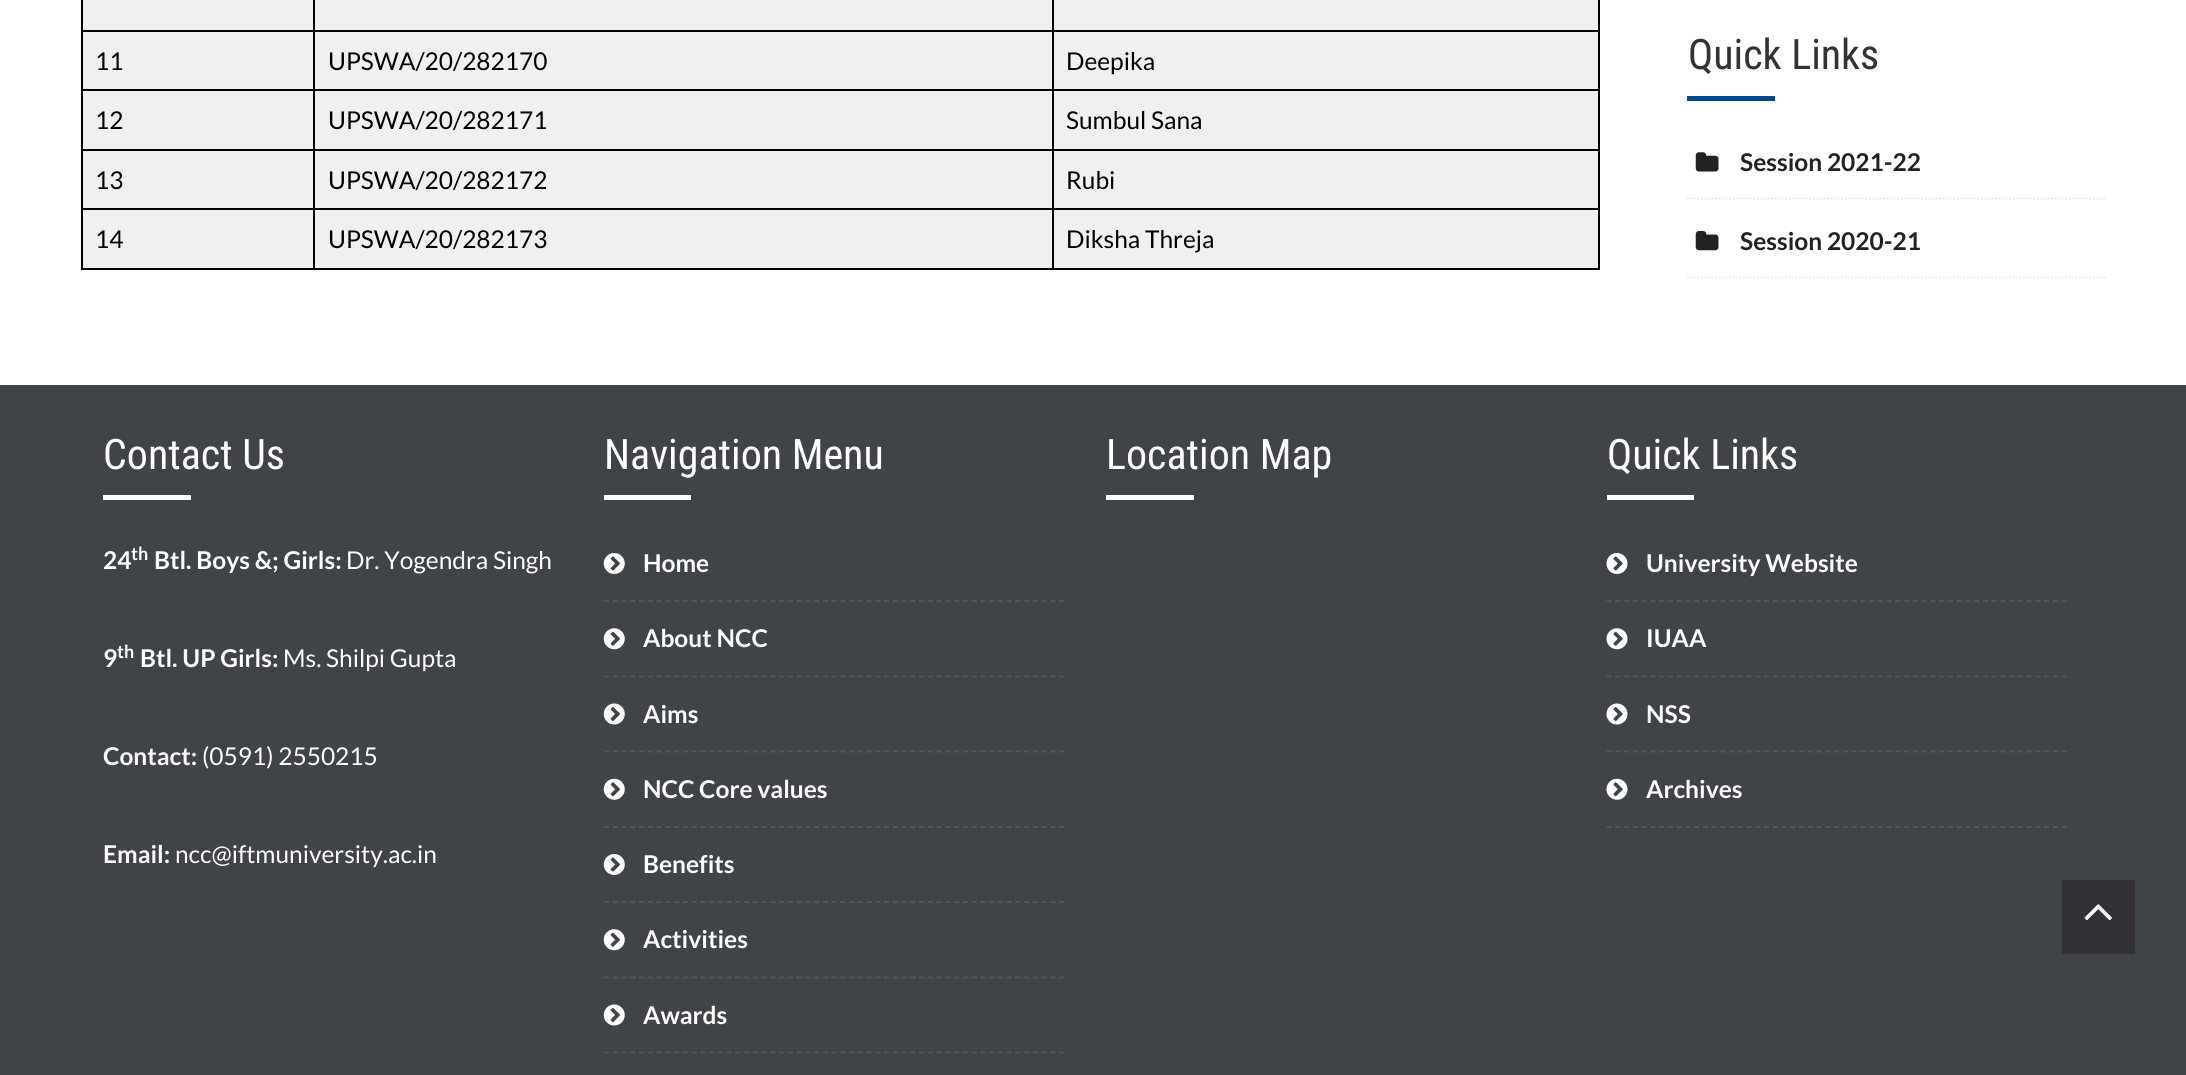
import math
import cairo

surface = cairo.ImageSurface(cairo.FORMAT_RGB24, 2186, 1075)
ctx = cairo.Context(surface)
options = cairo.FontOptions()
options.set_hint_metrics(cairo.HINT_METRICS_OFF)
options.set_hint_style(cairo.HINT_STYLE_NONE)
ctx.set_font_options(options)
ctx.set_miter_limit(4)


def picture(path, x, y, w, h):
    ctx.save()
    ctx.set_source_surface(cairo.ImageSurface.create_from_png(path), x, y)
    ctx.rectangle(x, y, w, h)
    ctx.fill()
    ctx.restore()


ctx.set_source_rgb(1, 1, 1)
ctx.paint()
ctx.set_source_rgb(0.941, 0.941, 0.941)
ctx.rectangle(83, 0, 1515, 30)
ctx.fill()
ctx.rectangle(83, 32, 1515, 57)
ctx.fill()
ctx.set_source_rgb(0, 0, 0)
ctx.rectangle(81, 30, 1519, 2)
ctx.fill()
ctx.rectangle(81, 89, 1519, 2)
ctx.fill()
ctx.rectangle(81, 149, 1519, 2)
ctx.fill()
ctx.rectangle(81, 208, 1519, 2)
ctx.fill()
ctx.rectangle(1598, 208, 2, 62)
ctx.fill()
ctx.rectangle(1598, 149, 2, 61)
ctx.fill()
ctx.rectangle(1598, 89, 2, 62)
ctx.fill()
ctx.rectangle(1598, 0, 2, 91)
ctx.fill()
ctx.rectangle(81, 268, 1519, 2)
ctx.fill()
ctx.rectangle(81, 208, 2, 62)
ctx.fill()
ctx.rectangle(81, 149, 2, 61)
ctx.fill()
ctx.rectangle(81, 89, 2, 62)
ctx.fill()
ctx.rectangle(81, 0, 2, 91)
ctx.fill()
ctx.select_font_face("Lato")
ctx.set_font_size(24.5)
ctx.move_to(95, 70)
ctx.show_text("11")
ctx.move_to(328, 70)
ctx.show_text("UPSWA/20/282170")
ctx.move_to(1066, 70)
ctx.show_text("Deepika")
ctx.set_source_rgb(0.941, 0.941, 0.941)
ctx.rectangle(83, 91, 1515, 58)
ctx.fill()
ctx.set_source_rgb(0, 0, 0)
ctx.move_to(95, 129)
ctx.show_text("12")
ctx.move_to(328, 129)
ctx.show_text("UPSWA/20/282171")
ctx.move_to(1066, 129)
ctx.show_text("Sumbul Sana")
ctx.set_source_rgb(0.941, 0.941, 0.941)
ctx.rectangle(83, 151, 1515, 57)
ctx.fill()
ctx.set_source_rgb(0, 0, 0)
ctx.move_to(95, 189)
ctx.show_text("13")
ctx.move_to(328, 189)
ctx.show_text("UPSWA/20/282172")
ctx.move_to(1066, 189)
ctx.show_text("Rubi")
ctx.set_source_rgb(0.941, 0.941, 0.941)
ctx.rectangle(83, 210, 1515, 58)
ctx.fill()
ctx.set_source_rgb(0, 0, 0)
ctx.move_to(95, 248)
ctx.show_text("14")
ctx.rectangle(313, 0, 2, 270)
ctx.fill()
ctx.move_to(328, 248)
ctx.show_text("UPSWA/20/282173")
ctx.rectangle(1052, 0, 2, 270)
ctx.fill()
ctx.move_to(1066, 248)
ctx.show_text("Diksha Threja")
ctx.select_font_face("Roboto Condensed")
ctx.set_font_size(42)
ctx.set_source_rgb(0.2, 0.2, 0.2)
ctx.move_to(1688, 69)
ctx.show_text("Quick Links")
ctx.set_source_rgb(0, 0.29, 0.553)
ctx.rectangle(1687, 96, 88, 5)
ctx.fill()
ctx.new_path()
ctx.move_to(1687, 198.5)
ctx.line_to(2107, 198.5)
ctx.set_source_rgb(0.902, 0.902, 0.902)
ctx.set_line_width(1.8)
ctx.set_dash([1.75, 1.75])
ctx.stroke()
picture("img1.png", 1695, 152, 24, 20)
ctx.select_font_face("Lato", cairo.FONT_SLANT_NORMAL, cairo.FONT_WEIGHT_BOLD)
ctx.set_font_size(24.5)
ctx.set_source_rgb(0.133, 0.133, 0.133)
ctx.move_to(1740, 171)
ctx.show_text("Session 2021-22")
ctx.new_path()
ctx.move_to(1687, 277.5)
ctx.line_to(2107, 277.5)
ctx.set_source_rgb(0.902, 0.902, 0.902)
ctx.stroke()
picture("img2.png", 1695, 231, 24, 20)
ctx.set_source_rgb(0.133, 0.133, 0.133)
ctx.move_to(1740, 250)
ctx.show_text("Session 2020-21")
ctx.set_source_rgb(0.251, 0.263, 0.278)
ctx.rectangle(0, 385, 2186, 690)
ctx.fill()
ctx.select_font_face("Roboto Condensed")
ctx.set_font_size(42)
ctx.set_source_rgb(1, 1, 1)
ctx.move_to(103, 469)
ctx.show_text("Contact Us")
ctx.rectangle(103, 495, 88, 5)
ctx.fill()
ctx.select_font_face("Lato", cairo.FONT_SLANT_NORMAL, cairo.FONT_WEIGHT_BOLD)
ctx.set_font_size(24.5)
ctx.move_to(103, 569)
ctx.show_text("24")
ctx.set_font_size(18)
ctx.move_to(131, 560)
ctx.show_text("th")
ctx.set_font_size(24.5)
ctx.move_to(154, 569)
ctx.show_text("Btl. Boys &; Girls:")
ctx.select_font_face("Lato")
ctx.move_to(346, 569)
ctx.show_text("Dr. Yogendra Singh")
ctx.select_font_face("Lato", cairo.FONT_SLANT_NORMAL, cairo.FONT_WEIGHT_BOLD)
ctx.move_to(103, 667)
ctx.show_text("9")
ctx.set_font_size(18)
ctx.move_to(117, 658)
ctx.show_text("th")
ctx.set_font_size(24.5)
ctx.move_to(140, 667)
ctx.show_text("Btl. UP Girls:")
ctx.select_font_face("Lato")
ctx.move_to(283, 667)
ctx.show_text("Ms. Shilpi Gupta")
ctx.select_font_face("Lato", cairo.FONT_SLANT_NORMAL, cairo.FONT_WEIGHT_BOLD)
ctx.move_to(103, 765)
ctx.show_text("Contact:")
ctx.select_font_face("Lato")
ctx.move_to(202, 765)
ctx.show_text("(0591) 2550215")
ctx.select_font_face("Lato", cairo.FONT_SLANT_NORMAL, cairo.FONT_WEIGHT_BOLD)
ctx.move_to(103, 863)
ctx.show_text("Email:")
ctx.select_font_face("Lato")
ctx.move_to(175, 863)
ctx.show_text("ncc@iftmuniversity.ac.in")
ctx.select_font_face("Roboto Condensed")
ctx.set_font_size(42)
ctx.move_to(604, 469)
ctx.show_text("Navigation Menu")
ctx.rectangle(604, 495, 87, 5)
ctx.fill()
ctx.new_path()
ctx.move_to(604, 601)
ctx.line_to(1064, 601)
ctx.set_source_rgb(0.325, 0.337, 0.349)
ctx.set_dash([5.25, 3.5])
ctx.stroke()
picture("img3.png", 603, 553, 22, 21)
ctx.select_font_face("Lato", cairo.FONT_SLANT_NORMAL, cairo.FONT_WEIGHT_BOLD)
ctx.set_font_size(24.5)
ctx.set_source_rgb(1, 1, 1)
ctx.move_to(643, 572)
ctx.show_text("Home")
ctx.new_path()
ctx.move_to(604, 676.5)
ctx.line_to(1064, 676.5)
ctx.set_source_rgb(0.325, 0.337, 0.349)
ctx.stroke()
picture("img4.png", 603, 628, 22, 22)
ctx.set_source_rgb(1, 1, 1)
ctx.move_to(643, 647)
ctx.show_text("About NCC")
ctx.new_path()
ctx.move_to(604, 751.5)
ctx.line_to(1064, 751.5)
ctx.set_source_rgb(0.325, 0.337, 0.349)
ctx.stroke()
picture("img5.png", 603, 703, 22, 22)
ctx.set_source_rgb(1, 1, 1)
ctx.move_to(643, 723)
ctx.show_text("Aims")
ctx.new_path()
ctx.move_to(604, 827)
ctx.line_to(1064, 827)
ctx.set_source_rgb(0.325, 0.337, 0.349)
ctx.stroke()
picture("img6.png", 603, 778, 22, 22)
ctx.set_source_rgb(1, 1, 1)
ctx.move_to(643, 798)
ctx.show_text("NCC Core values")
ctx.new_path()
ctx.move_to(604, 902)
ctx.line_to(1064, 902)
ctx.set_source_rgb(0.325, 0.337, 0.349)
ctx.stroke()
picture("img3.png", 603, 854, 22, 21)
ctx.set_source_rgb(1, 1, 1)
ctx.move_to(643, 873)
ctx.show_text("Benefits")
ctx.new_path()
ctx.move_to(604, 977.5)
ctx.line_to(1064, 977.5)
ctx.set_source_rgb(0.325, 0.337, 0.349)
ctx.stroke()
picture("img4.png", 603, 929, 22, 22)
ctx.set_source_rgb(1, 1, 1)
ctx.move_to(643, 948)
ctx.show_text("Activities")
ctx.new_path()
ctx.move_to(604, 1052.5)
ctx.line_to(1064, 1052.5)
ctx.set_source_rgb(0.325, 0.337, 0.349)
ctx.stroke()
picture("img5.png", 603, 1004, 22, 22)
ctx.set_source_rgb(1, 1, 1)
ctx.move_to(643, 1024)
ctx.show_text("Awards")
ctx.select_font_face("Roboto Condensed")
ctx.set_font_size(42)
ctx.move_to(1106, 469)
ctx.show_text("Location Map")
ctx.rectangle(1106, 495, 88, 5)
ctx.fill()
ctx.move_to(1607, 469)
ctx.show_text("Quick Links")
ctx.rectangle(1607, 495, 87, 5)
ctx.fill()
ctx.new_path()
ctx.move_to(1606.5, 601)
ctx.line_to(2067, 601)
ctx.set_source_rgb(0.325, 0.337, 0.349)
ctx.stroke()
picture("img7.png", 1606, 553, 22, 21)
ctx.select_font_face("Lato", cairo.FONT_SLANT_NORMAL, cairo.FONT_WEIGHT_BOLD)
ctx.set_font_size(24.5)
ctx.set_source_rgb(1, 1, 1)
ctx.move_to(1646, 572)
ctx.show_text("University Website")
ctx.new_path()
ctx.move_to(1606.5, 676.5)
ctx.line_to(2067, 676.5)
ctx.set_source_rgb(0.325, 0.337, 0.349)
ctx.stroke()
picture("img8.png", 1606, 628, 22, 22)
ctx.set_source_rgb(1, 1, 1)
ctx.move_to(1646, 647)
ctx.show_text("IUAA")
ctx.new_path()
ctx.move_to(1606.5, 751.5)
ctx.line_to(2067, 751.5)
ctx.set_source_rgb(0.325, 0.337, 0.349)
ctx.stroke()
picture("img9.png", 1606, 703, 22, 22)
ctx.set_source_rgb(1, 1, 1)
ctx.move_to(1646, 723)
ctx.show_text("NSS")
ctx.new_path()
ctx.move_to(1606.5, 827)
ctx.line_to(2067, 827)
ctx.set_source_rgb(0.325, 0.337, 0.349)
ctx.stroke()
picture("img10.png", 1606, 778, 22, 22)
ctx.set_source_rgb(1, 1, 1)
ctx.move_to(1646, 798)
ctx.show_text("Archives")
ctx.set_source_rgb(0.2, 0.192, 0.212)
ctx.rectangle(2062, 880, 73, 74)
ctx.fill()
picture("img11.png", 2084, 904, 28, 17)
surface.write_to_png("page.png")
